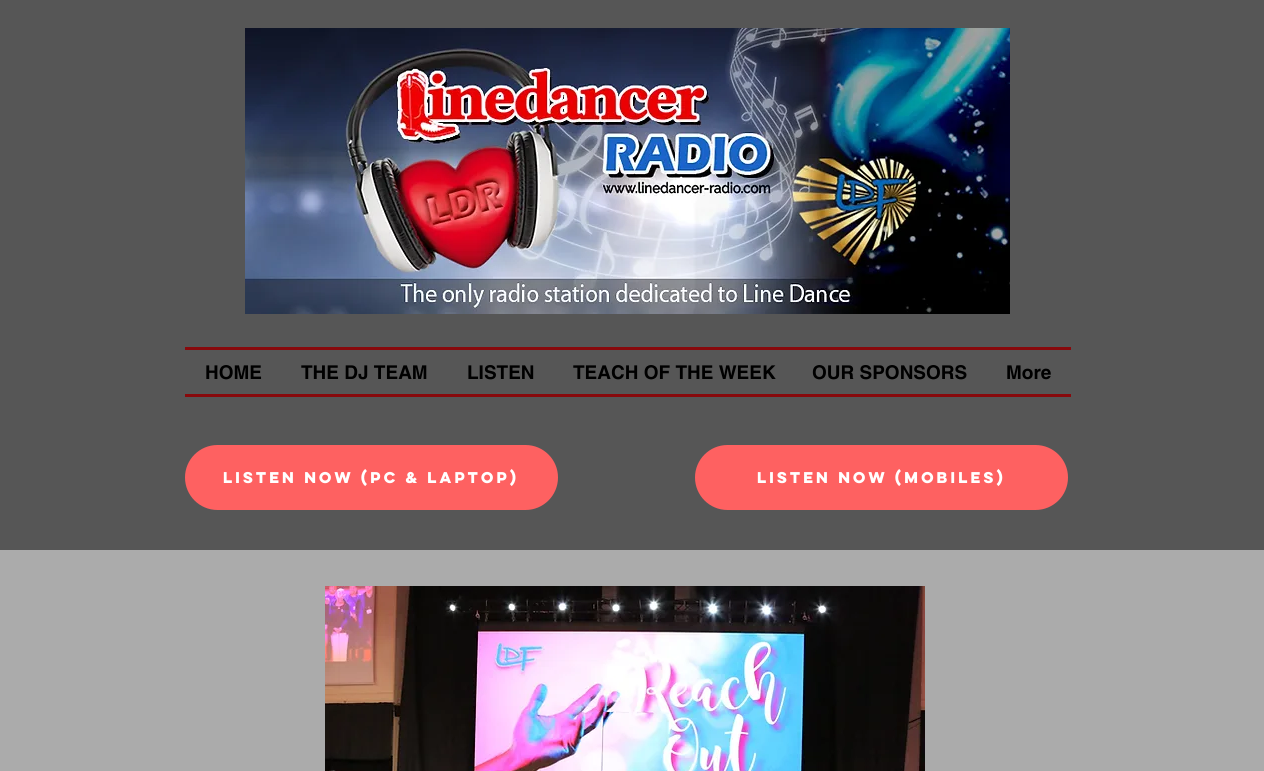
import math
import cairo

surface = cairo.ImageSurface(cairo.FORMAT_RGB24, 1264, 771)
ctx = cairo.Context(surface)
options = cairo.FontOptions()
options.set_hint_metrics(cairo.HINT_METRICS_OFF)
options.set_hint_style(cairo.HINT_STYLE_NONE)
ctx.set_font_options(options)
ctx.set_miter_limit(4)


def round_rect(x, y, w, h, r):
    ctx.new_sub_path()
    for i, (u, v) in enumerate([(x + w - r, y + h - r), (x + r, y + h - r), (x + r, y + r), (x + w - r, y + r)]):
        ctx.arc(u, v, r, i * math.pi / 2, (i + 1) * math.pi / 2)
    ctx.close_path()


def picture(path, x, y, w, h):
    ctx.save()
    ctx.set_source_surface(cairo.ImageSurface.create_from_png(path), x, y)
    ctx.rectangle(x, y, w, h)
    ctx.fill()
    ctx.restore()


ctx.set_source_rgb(0.671, 0.671, 0.671)
ctx.paint()
ctx.set_source_rgb(0.337, 0.337, 0.337)
ctx.rectangle(0, 0, 1264, 550)
ctx.fill()
picture("img1.png", 245, 28, 765, 286)
ctx.set_source_rgb(0.533, 0.039, 0.047)
ctx.rectangle(185, 347, 886, 3)
ctx.fill()
ctx.rectangle(185, 394, 886, 3)
ctx.fill()
ctx.select_font_face("helvetica", cairo.FONT_SLANT_NORMAL, cairo.FONT_WEIGHT_BOLD)
ctx.set_font_size(19)
ctx.set_source_rgb(0, 0, 0)
ctx.move_to(205, 379)
ctx.show_text("HOME")
ctx.move_to(301, 379)
ctx.show_text("THE DJ TEAM")
ctx.move_to(467, 379)
ctx.show_text("LISTEN")
ctx.move_to(573, 379)
ctx.show_text("TEACH OF THE WEEK")
ctx.move_to(812, 379)
ctx.show_text("OUR SPONSORS")
ctx.move_to(1006, 379)
ctx.show_text("More")
ctx.set_source_rgb(0.996, 0.38, 0.38)
round_rect(185, 445, 373, 65, 32.5)
ctx.fill()
ctx.select_font_face("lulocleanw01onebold", cairo.FONT_SLANT_NORMAL, cairo.FONT_WEIGHT_BOLD)
ctx.set_font_size(14)
ctx.set_source_rgb(1, 1, 1)
ctx.move_to(223, 483)
ctx.show_text("LISTEN NOW (PC & LAPTOP)")
ctx.set_source_rgb(0.996, 0.38, 0.38)
round_rect(695, 445, 373, 65, 32.5)
ctx.fill()
ctx.set_source_rgb(1, 1, 1)
ctx.move_to(757, 483)
ctx.show_text("LISTEN NOW (MOBILES)")
picture("img2.png", 325, 586, 600, 185)
surface.write_to_png("page.png")
